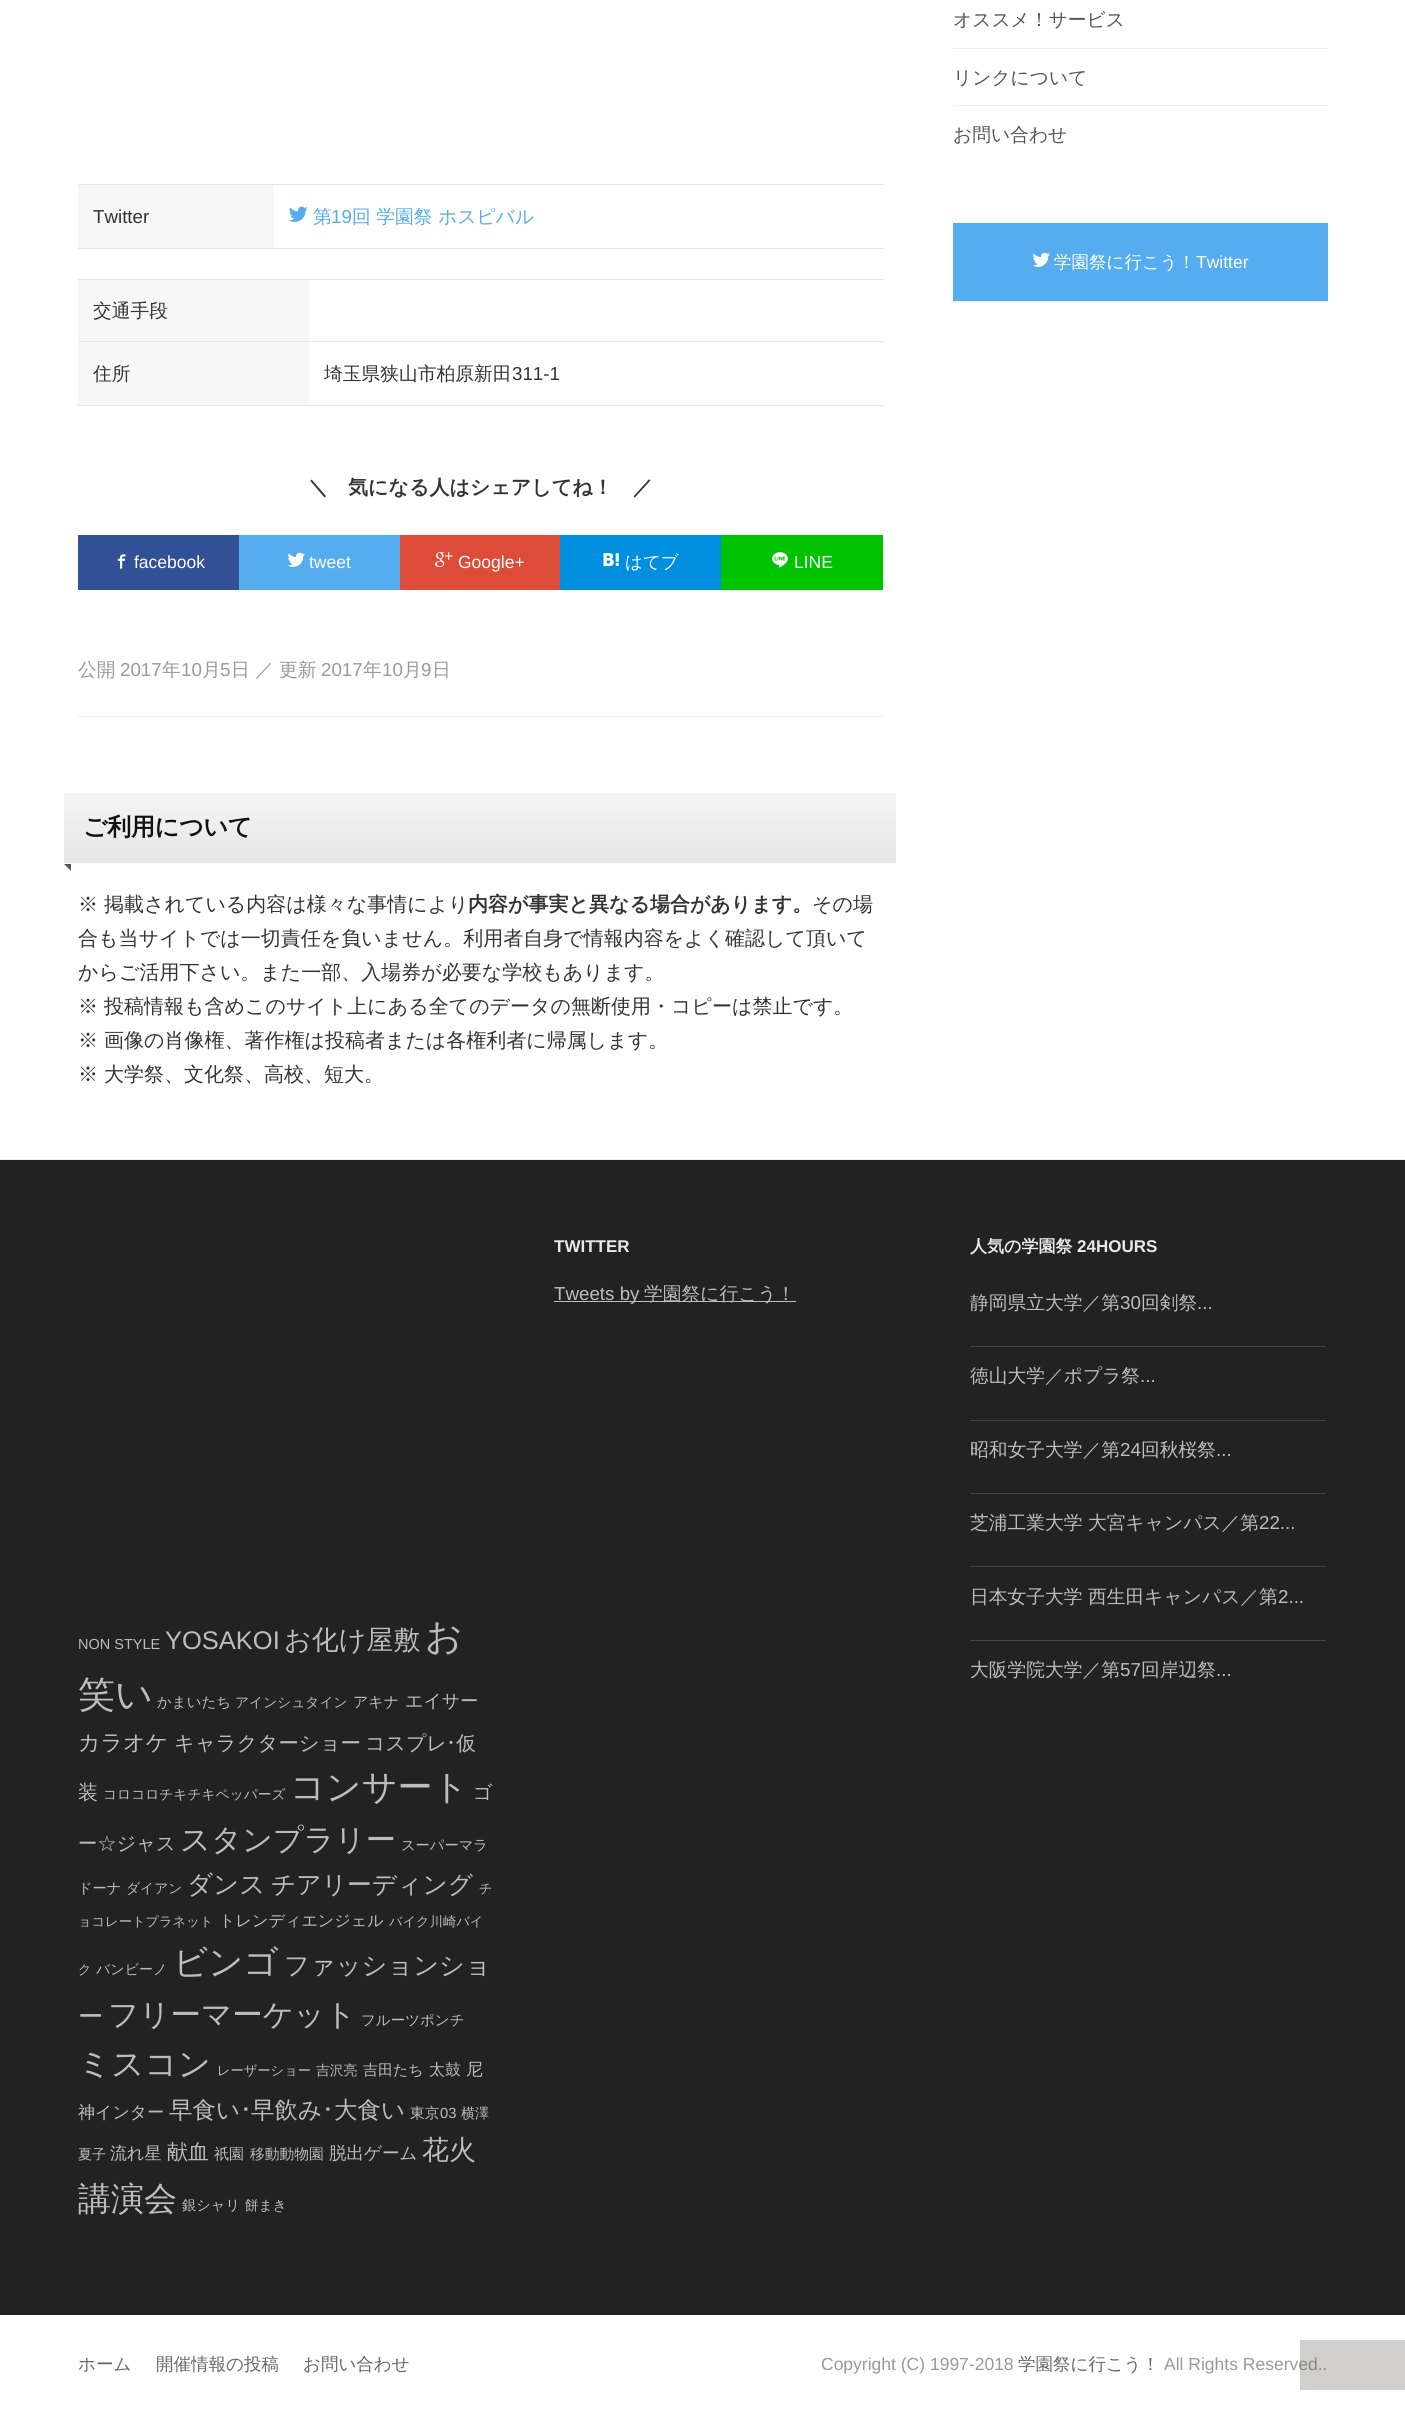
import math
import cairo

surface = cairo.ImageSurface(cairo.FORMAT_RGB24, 1405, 2415)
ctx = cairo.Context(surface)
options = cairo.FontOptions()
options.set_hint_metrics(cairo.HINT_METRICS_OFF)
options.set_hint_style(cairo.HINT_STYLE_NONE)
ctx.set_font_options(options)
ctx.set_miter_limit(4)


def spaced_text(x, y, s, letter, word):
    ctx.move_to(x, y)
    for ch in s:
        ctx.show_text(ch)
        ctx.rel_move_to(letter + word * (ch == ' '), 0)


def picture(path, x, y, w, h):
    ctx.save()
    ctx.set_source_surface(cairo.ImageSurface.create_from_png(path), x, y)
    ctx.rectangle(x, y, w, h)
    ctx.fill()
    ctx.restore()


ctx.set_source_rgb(1, 1, 1)
ctx.paint()
ctx.select_font_face("WenQuanYi Zen Hei Medium")
ctx.set_font_size(18.75)
ctx.set_source_rgb(0.333, 0.333, 0.333)
ctx.move_to(953, 26)
ctx.show_text("オススメ！サービス")
ctx.set_source_rgb(0.933, 0.933, 0.933)
ctx.rectangle(953, 48, 375, 1)
ctx.fill()
ctx.set_source_rgb(0.333, 0.333, 0.333)
ctx.move_to(953, 84)
ctx.show_text("リンクについて")
ctx.set_source_rgb(0.933, 0.933, 0.933)
ctx.rectangle(953, 105, 375, 1)
ctx.fill()
ctx.set_source_rgb(0.333, 0.333, 0.333)
ctx.move_to(953, 141)
ctx.show_text("お問い合わせ")
ctx.set_source_rgb(0.333, 0.675, 0.933)
ctx.rectangle(953, 223, 375, 78)
ctx.fill()
picture("img1.png", 1032, 252, 18, 15)
ctx.set_font_size(17.5)
ctx.set_source_rgb(1, 1, 1)
ctx.move_to(1054, 268)
ctx.show_text("学園祭に行こう！")
ctx.select_font_face("Liberation Sans")
ctx.move_to(1196, 268)
ctx.show_text("Twitter")
ctx.set_source_rgb(0.933, 0.933, 0.933)
ctx.rectangle(953, 301, 375, 1)
ctx.fill()
ctx.rectangle(78, 716, 805, 1)
ctx.fill()
ctx.set_source_rgb(0.902, 0.902, 0.902)
ctx.rectangle(78, 184, 805, 1)
ctx.fill()
ctx.set_source_rgb(0.965, 0.965, 0.965)
ctx.rectangle(78, 185, 196, 63)
ctx.fill()
ctx.set_font_size(18.75)
ctx.set_source_rgb(0.2, 0.2, 0.2)
ctx.move_to(93, 223)
ctx.show_text("Twitter")
ctx.set_source_rgb(0.902, 0.902, 0.902)
ctx.rectangle(78, 248, 806, 1)
ctx.fill()
picture("img2.png", 289, 206, 19, 16)
ctx.select_font_face("WenQuanYi Zen Hei Medium")
ctx.set_source_rgb(0.333, 0.675, 0.933)
ctx.move_to(313, 223)
ctx.show_text("第")
ctx.select_font_face("Liberation Sans")
ctx.move_to(331, 223)
ctx.show_text("19")
ctx.select_font_face("WenQuanYi Zen Hei Medium")
ctx.move_to(352, 223)
ctx.show_text("回 学園祭 ホスピバル")
ctx.set_source_rgb(0.902, 0.902, 0.902)
ctx.rectangle(78, 279, 805, 1)
ctx.fill()
ctx.set_source_rgb(0.965, 0.965, 0.965)
ctx.rectangle(78, 280, 231, 125)
ctx.fill()
ctx.set_source_rgb(0.2, 0.2, 0.2)
ctx.move_to(93, 317)
ctx.show_text("交通手段")
ctx.set_source_rgb(0.902, 0.902, 0.902)
ctx.rectangle(78, 341, 806, 1)
ctx.fill()
ctx.set_source_rgb(0.2, 0.2, 0.2)
ctx.move_to(93, 380)
ctx.show_text("住所")
ctx.set_source_rgb(0.902, 0.902, 0.902)
ctx.rectangle(78, 405, 806, 1)
ctx.fill()
ctx.set_source_rgb(0.2, 0.2, 0.2)
ctx.move_to(324, 380)
ctx.show_text("埼玉県狭山市柏原新田")
ctx.select_font_face("Liberation Sans")
ctx.move_to(512, 380)
ctx.show_text("311-1")
ctx.select_font_face("WenQuanYi Zen Hei", cairo.FONT_SLANT_NORMAL, cairo.FONT_WEIGHT_BOLD)
ctx.set_font_size(20)
ctx.move_to(308, 494)
ctx.show_text("＼　気になる人はシェアしてね！　／")
ctx.set_source_rgb(0.192, 0.314, 0.588)
ctx.rectangle(78, 535, 161, 55)
ctx.fill()
picture("img3.png", 117, 554, 9, 15)
ctx.select_font_face("Liberation Sans")
ctx.set_font_size(17.5)
ctx.set_source_rgb(1, 1, 1)
ctx.move_to(134, 568)
ctx.show_text("facebook")
ctx.set_source_rgb(0.333, 0.675, 0.933)
ctx.rectangle(239, 535, 161, 55)
ctx.fill()
picture("img1.png", 287, 552, 18, 15)
ctx.set_source_rgb(1, 1, 1)
ctx.move_to(309, 568)
ctx.show_text("tweet")
ctx.set_source_rgb(0.867, 0.294, 0.224)
ctx.rectangle(400, 535, 160, 55)
ctx.fill()
picture("img4.png", 435, 552, 18, 15)
ctx.set_source_rgb(1, 1, 1)
ctx.move_to(458, 568)
ctx.show_text("Google+")
ctx.set_source_rgb(0, 0.561, 0.871)
ctx.rectangle(560, 535, 161, 55)
ctx.fill()
picture("img5.png", 603, 553, 16, 14)
ctx.select_font_face("WenQuanYi Zen Hei Medium")
ctx.set_source_rgb(1, 1, 1)
ctx.move_to(625, 568)
ctx.show_text("はてブ")
ctx.set_source_rgb(0, 0.765, 0)
ctx.rectangle(721, 535, 162, 55)
ctx.fill()
picture("img6.png", 772, 552, 16, 16)
ctx.select_font_face("Liberation Sans")
ctx.set_source_rgb(1, 1, 1)
ctx.move_to(794, 568)
ctx.show_text("LINE")
ctx.select_font_face("WenQuanYi Zen Hei Medium")
ctx.set_font_size(18.75)
ctx.set_source_rgb(0.6, 0.6, 0.6)
ctx.move_to(78, 676)
ctx.show_text("公開")
ctx.select_font_face("Liberation Sans")
ctx.move_to(120, 676)
ctx.show_text("2017")
ctx.select_font_face("WenQuanYi Zen Hei Medium")
ctx.move_to(162, 676)
ctx.show_text("年")
ctx.select_font_face("Liberation Sans")
ctx.move_to(181, 676)
ctx.show_text("10")
ctx.select_font_face("WenQuanYi Zen Hei Medium")
ctx.move_to(202, 676)
ctx.show_text("月")
ctx.select_font_face("Liberation Sans")
ctx.move_to(220, 676)
ctx.show_text("5")
ctx.select_font_face("WenQuanYi Zen Hei Medium")
ctx.move_to(231, 676)
ctx.show_text("日")
ctx.move_to(255, 676)
ctx.show_text("／")
ctx.move_to(279, 676)
ctx.show_text("更新")
ctx.select_font_face("Liberation Sans")
ctx.move_to(321, 676)
ctx.show_text("2017")
ctx.select_font_face("WenQuanYi Zen Hei Medium")
ctx.move_to(363, 676)
ctx.show_text("年")
ctx.select_font_face("Liberation Sans")
ctx.move_to(382, 676)
ctx.show_text("10")
ctx.select_font_face("WenQuanYi Zen Hei Medium")
ctx.move_to(403, 676)
ctx.show_text("月")
ctx.select_font_face("Liberation Sans")
ctx.move_to(421, 676)
ctx.show_text("9")
ctx.select_font_face("WenQuanYi Zen Hei Medium")
ctx.move_to(432, 676)
ctx.show_text("日")
gradient = cairo.LinearGradient(480, 793, 480, 864)
gradient.add_color_stop_rgba(0, 0.961, 0.961, 0.961, 1)
gradient.add_color_stop_rgba(1, 0.898, 0.898, 0.898, 1)
ctx.set_source(gradient)
ctx.rectangle(64, 793, 832, 70)
ctx.fill()
ctx.set_source_rgb(0.98, 0.98, 0.98)
ctx.rectangle(64, 863, 832, 1)
ctx.fill()
ctx.select_font_face("WenQuanYi Zen Hei", cairo.FONT_SLANT_NORMAL, cairo.FONT_WEIGHT_BOLD)
ctx.set_font_size(24)
ctx.set_source_rgb(0.067, 0.067, 0.067)
spaced_text(83, 835, "ご利用について", -0.25, 0)
ctx.set_source_rgb(0.333, 0.333, 0.333)
ctx.new_path()
ctx.move_to(64, 864)
ctx.line_to(71, 864)
ctx.line_to(71, 871)
ctx.close_path()
ctx.fill()
ctx.select_font_face("WenQuanYi Zen Hei Medium")
ctx.set_font_size(20)
ctx.set_source_rgb(0.2, 0.2, 0.2)
ctx.move_to(78, 911)
ctx.show_text("※ 掲載されている内容は様々な事情により")
ctx.select_font_face("WenQuanYi Zen Hei", cairo.FONT_SLANT_NORMAL, cairo.FONT_WEIGHT_BOLD)
ctx.move_to(468, 911)
ctx.show_text("内容が事実と異なる場合があります。")
ctx.select_font_face("WenQuanYi Zen Hei Medium")
ctx.move_to(812, 911)
ctx.show_text("その場")
ctx.move_to(78, 945)
ctx.show_text("合も当サイトでは一切責任を負いません。利用者自身で情報内容をよく確認して頂いて")
ctx.move_to(78, 979)
ctx.show_text("からご活用下さい。また一部、入場券が必要な学校もあります。")
ctx.move_to(78, 1013)
ctx.show_text("※ 投稿情報も含めこのサイト上にある全てのデータの無断使用・コピーは禁止です。")
ctx.move_to(78, 1047)
ctx.show_text("※ 画像の肖像権、著作権は投稿者または各権利者に帰属します。")
ctx.move_to(78, 1081)
ctx.show_text("※ 大学祭、文化祭、高校、短大。")
ctx.set_source_rgb(0.933, 0.933, 0.933)
ctx.rectangle(0, 1159, 1405, 1)
ctx.fill()
ctx.set_source_rgb(0.133, 0.133, 0.133)
ctx.rectangle(0, 1160, 1405, 1155)
ctx.fill()
ctx.select_font_face("Liberation Sans", cairo.FONT_SLANT_NORMAL, cairo.FONT_WEIGHT_BOLD)
ctx.set_font_size(17)
ctx.set_source_rgb(0.914, 0.914, 0.914)
ctx.move_to(554, 1252)
ctx.show_text("TWITTER")
ctx.set_source_rgb(0.741, 0.741, 0.741)
ctx.rectangle(554, 1301, 242, 1)
ctx.fill()
ctx.select_font_face("Liberation Sans")
ctx.set_font_size(18.75)
ctx.move_to(554, 1300)
ctx.show_text("Tweets by")
ctx.select_font_face("WenQuanYi Zen Hei Medium")
ctx.move_to(644, 1300)
ctx.show_text("学園祭に行こう！")
ctx.select_font_face("WenQuanYi Zen Hei", cairo.FONT_SLANT_NORMAL, cairo.FONT_WEIGHT_BOLD)
ctx.set_font_size(17)
ctx.set_source_rgb(0.914, 0.914, 0.914)
ctx.move_to(970, 1252)
ctx.show_text("人気の学園祭")
ctx.select_font_face("Liberation Sans", cairo.FONT_SLANT_NORMAL, cairo.FONT_WEIGHT_BOLD)
ctx.move_to(1077, 1252)
ctx.show_text("24HOURS")
ctx.select_font_face("WenQuanYi Zen Hei Medium")
ctx.set_font_size(18.75)
ctx.set_source_rgb(0.741, 0.741, 0.741)
ctx.move_to(970, 1309)
ctx.show_text("静岡県立大学／第")
ctx.select_font_face("Liberation Sans")
ctx.move_to(1120, 1309)
ctx.show_text("30")
ctx.select_font_face("WenQuanYi Zen Hei Medium")
ctx.move_to(1141, 1309)
ctx.show_text("回剣祭")
ctx.select_font_face("Liberation Sans")
ctx.move_to(1197, 1309)
ctx.show_text("...")
ctx.set_source_rgb(0.263, 0.263, 0.263)
ctx.rectangle(970, 1346, 356, 1)
ctx.fill()
ctx.select_font_face("WenQuanYi Zen Hei Medium")
ctx.set_source_rgb(0.741, 0.741, 0.741)
ctx.move_to(970, 1382)
ctx.show_text("徳山大学／ポプラ祭")
ctx.select_font_face("Liberation Sans")
ctx.move_to(1140, 1382)
ctx.show_text("...")
ctx.set_source_rgb(0.263, 0.263, 0.263)
ctx.rectangle(970, 1420, 356, 1)
ctx.fill()
ctx.select_font_face("WenQuanYi Zen Hei Medium")
ctx.set_source_rgb(0.741, 0.741, 0.741)
ctx.move_to(970, 1456)
ctx.show_text("昭和女子大学／第")
ctx.select_font_face("Liberation Sans")
ctx.move_to(1120, 1456)
ctx.show_text("24")
ctx.select_font_face("WenQuanYi Zen Hei Medium")
ctx.move_to(1141, 1456)
ctx.show_text("回秋桜祭")
ctx.select_font_face("Liberation Sans")
ctx.move_to(1216, 1456)
ctx.show_text("...")
ctx.set_source_rgb(0.263, 0.263, 0.263)
ctx.rectangle(970, 1493, 356, 1)
ctx.fill()
ctx.select_font_face("WenQuanYi Zen Hei Medium")
ctx.set_source_rgb(0.741, 0.741, 0.741)
ctx.move_to(970, 1529)
ctx.show_text("芝浦工業大学 大宮キャンパス／第")
ctx.select_font_face("Liberation Sans")
ctx.move_to(1259, 1529)
ctx.show_text("22...")
ctx.set_source_rgb(0.263, 0.263, 0.263)
ctx.rectangle(970, 1566, 356, 1)
ctx.fill()
ctx.select_font_face("WenQuanYi Zen Hei Medium")
ctx.set_source_rgb(0.741, 0.741, 0.741)
ctx.move_to(970, 1603)
ctx.show_text("日本女子大学 西生田キャンパス／第")
ctx.select_font_face("Liberation Sans")
ctx.move_to(1278, 1603)
ctx.show_text("2...")
ctx.set_source_rgb(0.263, 0.263, 0.263)
ctx.rectangle(970, 1640, 356, 1)
ctx.fill()
ctx.select_font_face("WenQuanYi Zen Hei Medium")
ctx.set_source_rgb(0.741, 0.741, 0.741)
ctx.move_to(970, 1676)
ctx.show_text("大阪学院大学／第")
ctx.select_font_face("Liberation Sans")
ctx.move_to(1120, 1676)
ctx.show_text("57")
ctx.select_font_face("WenQuanYi Zen Hei Medium")
ctx.move_to(1141, 1676)
ctx.show_text("回岸辺祭")
ctx.select_font_face("Liberation Sans")
ctx.move_to(1216, 1676)
ctx.show_text("...")
ctx.set_font_size(14.5)
ctx.move_to(78, 1649)
ctx.show_text("NON STYLE")
ctx.set_font_size(25.5)
ctx.move_to(165, 1649)
ctx.show_text("YOSAKOI")
ctx.select_font_face("WenQuanYi Zen Hei Medium")
ctx.set_font_size(27)
ctx.move_to(284, 1649)
ctx.show_text("お化け屋敷")
ctx.set_font_size(37)
ctx.move_to(425, 1649)
ctx.show_text("お")
ctx.move_to(78, 1707)
ctx.show_text("笑い")
ctx.set_font_size(14.5)
ctx.move_to(157, 1707)
ctx.show_text("かまいたち")
ctx.set_font_size(13.75)
ctx.move_to(235, 1707)
ctx.show_text("アインシュタイン")
ctx.set_font_size(15)
ctx.move_to(353, 1707)
ctx.show_text("アキナ")
ctx.set_font_size(18)
ctx.move_to(405, 1707)
ctx.show_text("エイサー")
ctx.set_font_size(22)
ctx.move_to(78, 1750)
ctx.show_text("カラオケ")
ctx.set_font_size(20.4)
ctx.move_to(174, 1750)
ctx.show_text("キャラクターショー")
ctx.set_font_size(20)
ctx.move_to(365, 1750)
ctx.show_text("コスプレ")
ctx.select_font_face("IPAPGothic")
ctx.move_to(446, 1750)
ctx.show_text("･")
ctx.select_font_face("WenQuanYi Zen Hei Medium")
ctx.move_to(456, 1750)
ctx.show_text("仮")
ctx.move_to(78, 1799)
ctx.show_text("装")
ctx.set_font_size(13.75)
ctx.move_to(103, 1799)
ctx.show_text("コロコロチキチキペッパーズ")
ctx.set_font_size(35)
ctx.move_to(290, 1799)
ctx.show_text("コンサート")
ctx.set_font_size(19.25)
ctx.move_to(473, 1799)
ctx.show_text("ゴ")
ctx.move_to(78, 1850)
ctx.show_text("ー☆ジャス")
ctx.set_font_size(30.25)
ctx.move_to(180, 1850)
ctx.show_text("スタンプラリー")
ctx.set_font_size(14.25)
ctx.move_to(401, 1850)
ctx.show_text("スーパーマラ")
ctx.move_to(78, 1893)
ctx.show_text("ドーナ")
ctx.set_font_size(13.75)
ctx.move_to(126, 1893)
ctx.show_text("ダイアン")
ctx.set_font_size(25.5)
ctx.move_to(187, 1893)
ctx.show_text("ダンス")
ctx.set_font_size(24.75)
ctx.move_to(271, 1893)
ctx.show_text("チアリーディング")
ctx.set_font_size(13.25)
ctx.move_to(479, 1893)
ctx.show_text("チ")
ctx.move_to(78, 1926)
ctx.show_text("ョコレートプラネット")
ctx.set_font_size(16.1)
ctx.move_to(219, 1926)
ctx.show_text("トレンディエンジェル")
ctx.set_font_size(13.25)
ctx.move_to(389, 1926)
ctx.show_text("バイク川崎バイ")
ctx.move_to(78, 1974)
ctx.show_text("ク")
ctx.set_font_size(14)
ctx.move_to(96, 1974)
ctx.show_text("バンビーノ")
ctx.set_font_size(34.5)
ctx.move_to(173, 1974)
ctx.show_text("ビンゴ")
ctx.set_font_size(25.25)
ctx.move_to(284, 1974)
ctx.show_text("ファッションショ")
ctx.move_to(78, 2025)
ctx.show_text("ー")
ctx.set_font_size(30.5)
ctx.move_to(108, 2025)
ctx.show_text("フリーマーケット")
ctx.set_font_size(14.5)
ctx.move_to(361, 2025)
ctx.show_text("フルーツポンチ")
ctx.set_font_size(32.5)
ctx.move_to(78, 2075)
ctx.show_text("ミスコン")
ctx.set_font_size(13.25)
ctx.move_to(217, 2075)
ctx.show_text("レーザーショー")
ctx.set_font_size(13.75)
ctx.move_to(316, 2075)
ctx.show_text("吉沢亮")
ctx.set_font_size(15)
ctx.move_to(363, 2075)
ctx.show_text("吉田たち")
ctx.set_font_size(16)
ctx.move_to(429, 2075)
ctx.show_text("太鼓")
ctx.set_font_size(17)
ctx.move_to(466, 2075)
ctx.show_text("尼")
ctx.move_to(78, 2118)
ctx.show_text("神インター")
ctx.set_font_size(23.5)
ctx.move_to(169, 2118)
ctx.show_text("早食い")
ctx.select_font_face("IPAPGothic")
ctx.move_to(240, 2118)
ctx.show_text("･")
ctx.select_font_face("WenQuanYi Zen Hei Medium")
ctx.move_to(251, 2118)
ctx.show_text("早飲み")
ctx.select_font_face("IPAPGothic")
ctx.move_to(322, 2118)
ctx.show_text("･")
ctx.select_font_face("WenQuanYi Zen Hei Medium")
ctx.move_to(334, 2118)
ctx.show_text("大食い")
ctx.set_font_size(14.75)
ctx.move_to(410, 2118)
ctx.show_text("東京")
ctx.select_font_face("Liberation Sans")
ctx.move_to(440, 2118)
ctx.show_text("03")
ctx.select_font_face("WenQuanYi Zen Hei Medium")
ctx.set_font_size(14)
ctx.move_to(461, 2118)
ctx.show_text("横澤")
ctx.move_to(78, 2159)
ctx.show_text("夏子")
ctx.set_font_size(17)
ctx.move_to(110, 2159)
ctx.show_text("流れ星")
ctx.set_font_size(21)
ctx.move_to(167, 2159)
ctx.show_text("献血")
ctx.set_font_size(15)
ctx.move_to(214, 2159)
ctx.show_text("祇園")
ctx.set_font_size(14.75)
ctx.move_to(250, 2159)
ctx.show_text("移動動物園")
ctx.set_font_size(17.5)
ctx.move_to(329, 2159)
ctx.show_text("脱出ゲーム")
ctx.set_font_size(27)
ctx.move_to(422, 2159)
ctx.show_text("花火")
ctx.set_font_size(33)
ctx.move_to(78, 2210)
ctx.show_text("講演会")
ctx.set_font_size(14.25)
ctx.move_to(182, 2210)
ctx.show_text("銀シャリ")
ctx.set_font_size(13.75)
ctx.move_to(245, 2210)
ctx.show_text("餅まき")
ctx.set_font_size(17.5)
ctx.set_source_rgb(0.4, 0.4, 0.4)
ctx.move_to(78, 2370)
ctx.show_text("ホーム")
ctx.move_to(156, 2370)
ctx.show_text("開催情報の投稿")
ctx.move_to(303, 2370)
ctx.show_text("お問い合わせ")
ctx.select_font_face("Liberation Sans")
ctx.set_source_rgb(0.6, 0.6, 0.6)
ctx.move_to(821, 2370)
ctx.show_text("Copyright (C) 1997-2018")
ctx.select_font_face("WenQuanYi Zen Hei Medium")
ctx.set_source_rgb(0.4, 0.4, 0.4)
ctx.move_to(1018, 2370)
ctx.show_text("学園祭に行こう！")
ctx.select_font_face("Liberation Sans")
ctx.set_source_rgb(0.6, 0.6, 0.6)
ctx.move_to(1164, 2370)
ctx.show_text("All Rights Reserved..")
ctx.set_source_rgba(0.4, 0.369, 0.325, 0.3)
ctx.rectangle(1300, 2340, 105, 50)
ctx.fill()
surface.write_to_png("page.png")
